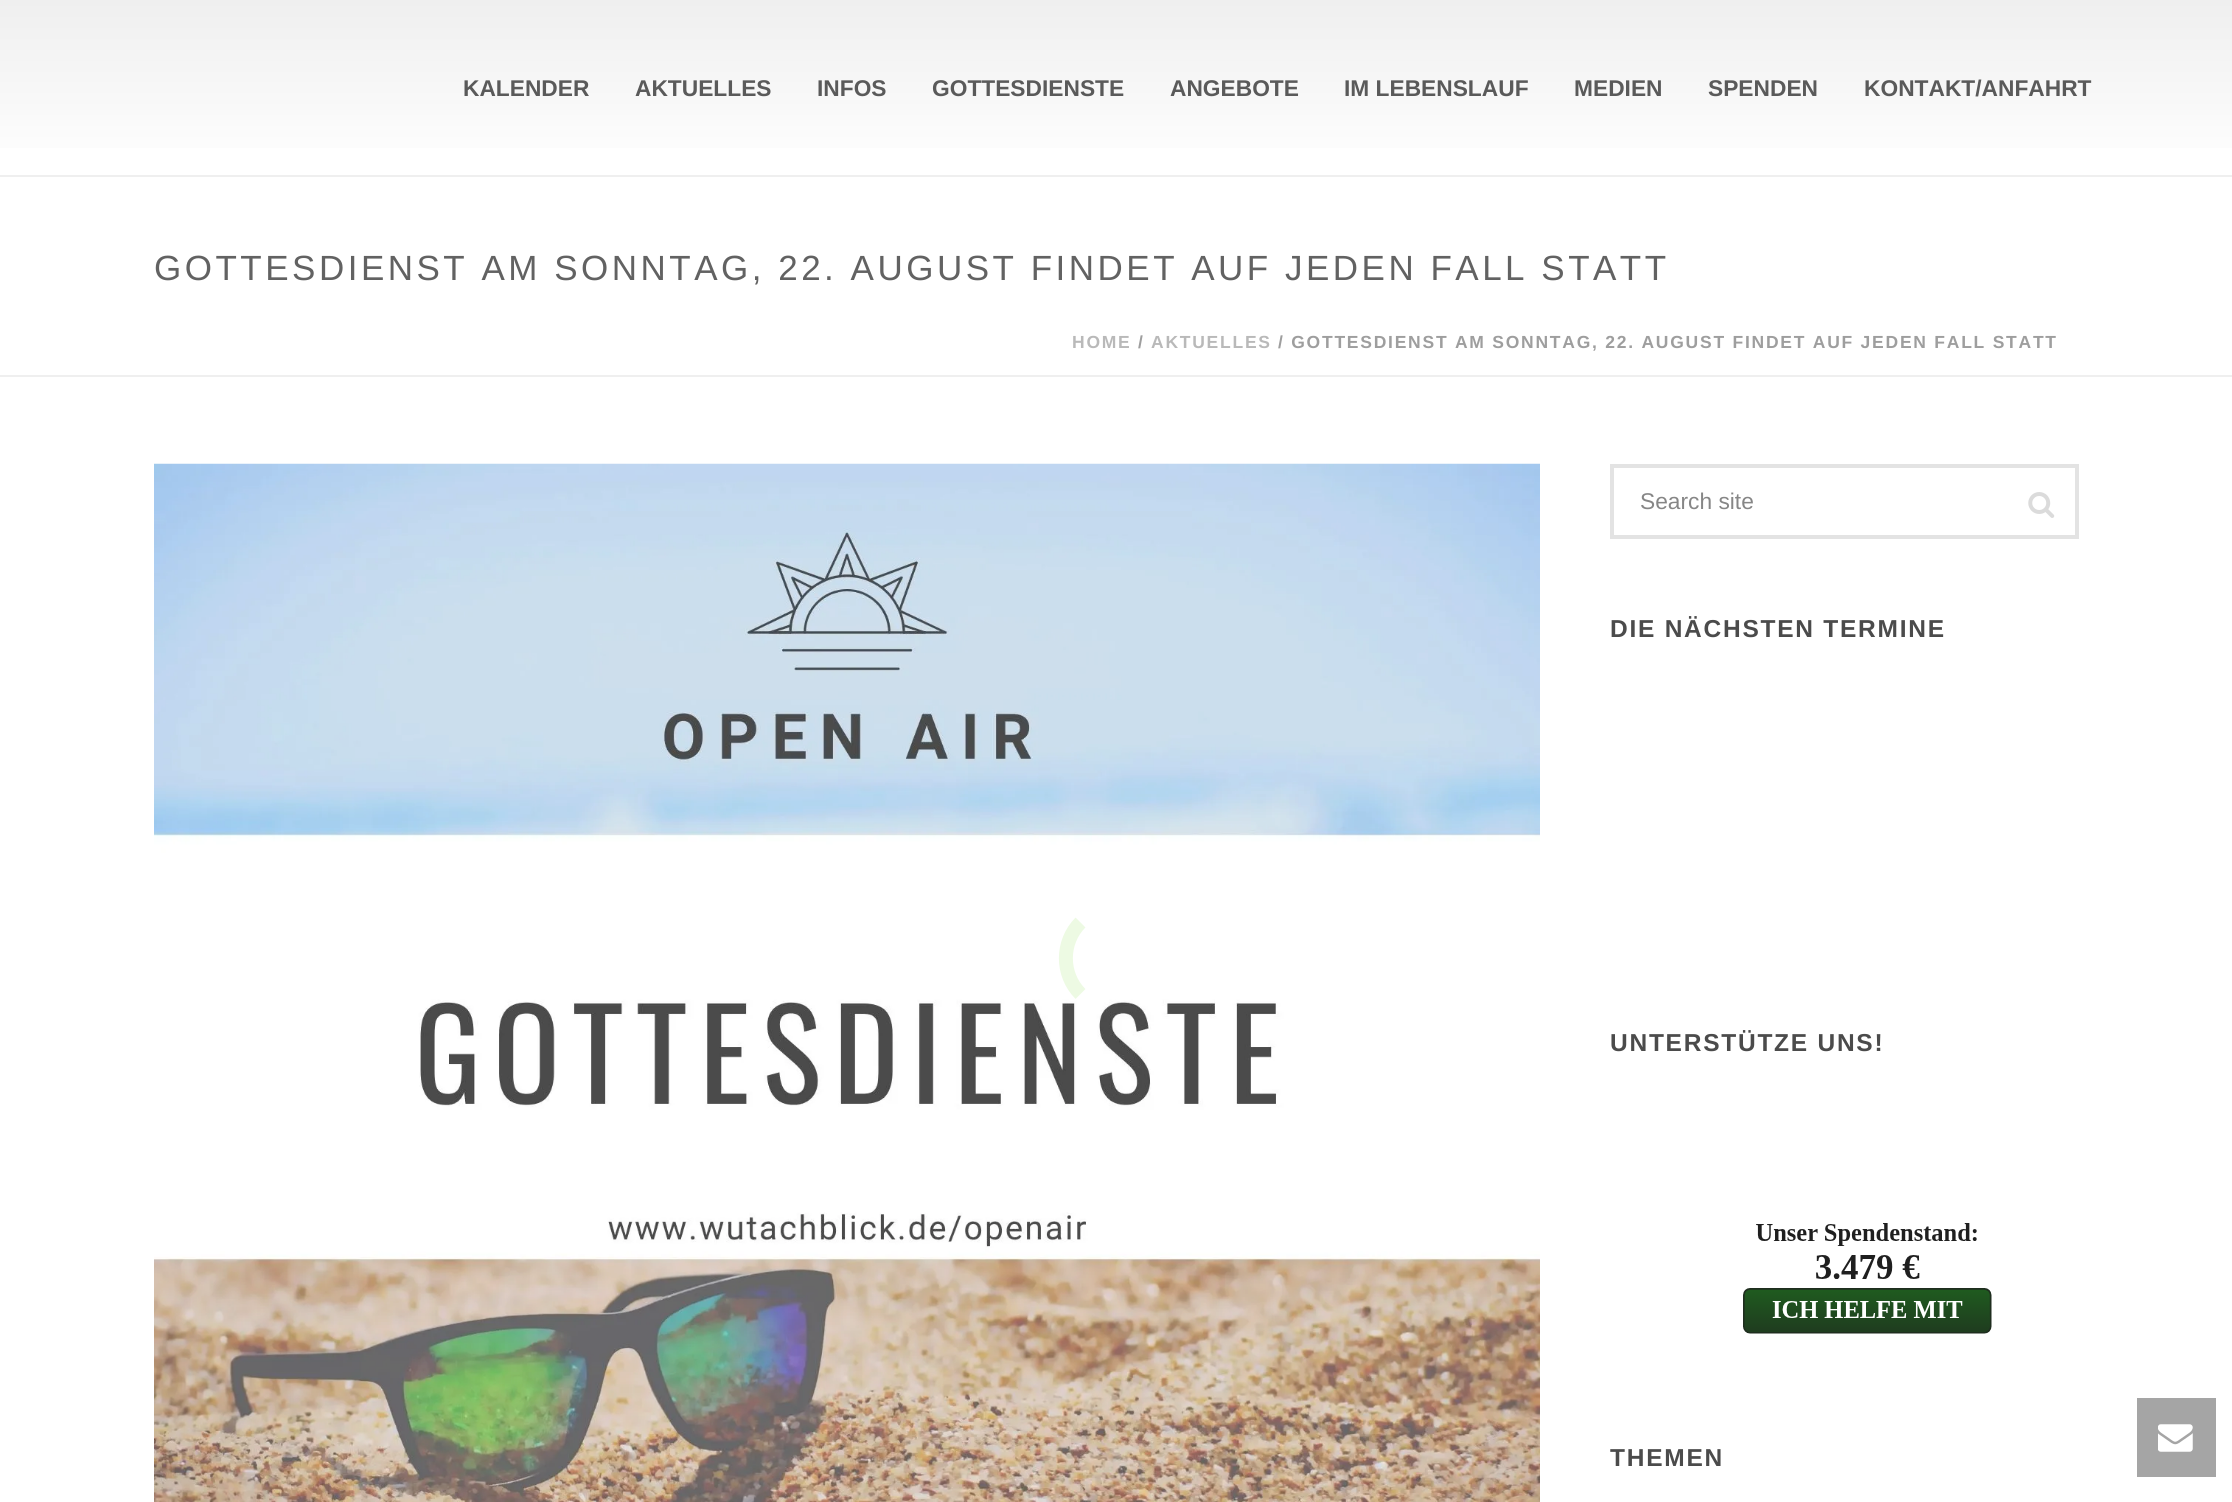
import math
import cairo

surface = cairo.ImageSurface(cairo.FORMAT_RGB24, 2232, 1502)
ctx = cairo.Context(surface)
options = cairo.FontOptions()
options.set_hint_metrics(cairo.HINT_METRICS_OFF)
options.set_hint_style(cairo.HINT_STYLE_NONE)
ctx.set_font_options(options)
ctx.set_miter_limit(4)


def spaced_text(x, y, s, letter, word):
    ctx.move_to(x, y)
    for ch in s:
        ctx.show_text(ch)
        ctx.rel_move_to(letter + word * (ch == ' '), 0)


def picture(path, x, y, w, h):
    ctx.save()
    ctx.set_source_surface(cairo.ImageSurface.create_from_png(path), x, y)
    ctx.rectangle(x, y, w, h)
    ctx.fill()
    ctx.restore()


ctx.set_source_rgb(1, 1, 1)
ctx.paint()
ctx.set_source_rgb(0.937, 0.937, 0.937)
ctx.rectangle(0, 375, 2232, 2)
ctx.fill()
ctx.rectangle(0, 175, 2232, 2)
ctx.fill()
gradient = cairo.LinearGradient(1117, 0, 1117, 175)
gradient.add_color_stop_rgba(0, 0.937, 0.937, 0.937, 1)
gradient.add_color_stop_rgba(1, 1, 1, 1, 1)
ctx.set_source(gradient)
ctx.rectangle(0, 0, 2232, 148)
ctx.fill()
ctx.select_font_face("Liberation Sans", cairo.FONT_SLANT_NORMAL, cairo.FONT_WEIGHT_BOLD)
ctx.set_font_size(22.75)
ctx.set_source_rgb(0.353, 0.353, 0.353)
ctx.move_to(463, 96)
ctx.show_text("KALENDER")
ctx.move_to(635, 96)
ctx.show_text("AKTUELLES")
ctx.move_to(817, 96)
ctx.show_text("INFOS")
ctx.move_to(932, 96)
ctx.show_text("GOTTESDIENSTE")
ctx.move_to(1170, 96)
ctx.show_text("ANGEBOTE")
ctx.move_to(1344, 96)
ctx.show_text("IM LEBENSLAUF")
ctx.move_to(1574, 96)
ctx.show_text("MEDIEN")
ctx.move_to(1708, 96)
ctx.show_text("SPENDEN")
ctx.move_to(1864, 96)
ctx.show_text("KONTAKT/ANFAHRT")
ctx.select_font_face("Liberation Sans")
ctx.set_font_size(35)
ctx.set_source_rgb(0.384, 0.384, 0.384)
spaced_text(154, 280, "GOTTESDIENST AM SONNTAG, 22. AUGUST FINDET AUF JEDEN FALL STATT", 3.5, 0)
ctx.select_font_face("Liberation Sans", cairo.FONT_SLANT_NORMAL, cairo.FONT_WEIGHT_BOLD)
ctx.set_font_size(17.5)
ctx.set_source_rgb(0.725, 0.725, 0.725)
spaced_text(1072, 348, "HOME", 1.75, 0)
ctx.set_source_rgb(0.62, 0.62, 0.62)
spaced_text(1138, 348, "/", 1.75, 0)
ctx.set_source_rgb(0.725, 0.725, 0.725)
spaced_text(1151, 348, "AKTUELLES", 1.75, 0)
ctx.set_source_rgb(0.62, 0.62, 0.62)
spaced_text(1278, 348, "/ GOTTESDIENST AM SONNTAG, 22. AUGUST FINDET AUF JEDEN FALL STATT", 1.75, 0)
picture("img1.png", 154, 463, 1386, 1039)
ctx.rectangle(1612, 466, 465, 71)
ctx.set_source_rgb(0.89, 0.89, 0.89)
ctx.set_line_width(4)
ctx.stroke()
ctx.select_font_face("Liberation Sans")
ctx.set_font_size(22.75)
ctx.set_source_rgb(0.525, 0.525, 0.525)
ctx.move_to(1640, 509)
ctx.show_text("Search site")
picture("img2.png", 2028, 492, 27, 26)
ctx.select_font_face("Liberation Sans", cairo.FONT_SLANT_NORMAL, cairo.FONT_WEIGHT_BOLD)
ctx.set_font_size(24.5)
ctx.set_source_rgb(0.294, 0.294, 0.294)
spaced_text(1610, 637, "DIE NÄCHSTEN TERMINE", 1.75, 0)
spaced_text(1610, 1051, "UNTERSTÜTZE UNS!", 1.75, 0)
picture("img3.png", 1743, 1223, 249, 111)
spaced_text(1610, 1466, "THEMEN", 1.75, 0)
ctx.new_path()
ctx.move_to(1080.5, 994)
ctx.curve_to(1061, 974.5, 1061, 942, 1080.5, 922.5)
ctx.set_source_rgb(0.929, 0.98, 0.89)
ctx.set_line_width(14)
ctx.stroke()
ctx.set_source_rgb(0.647, 0.647, 0.647)
ctx.rectangle(2137, 1398, 79, 79)
ctx.fill()
picture("img4.png", 2158, 1424, 35, 28)
surface.write_to_png("page.png")
